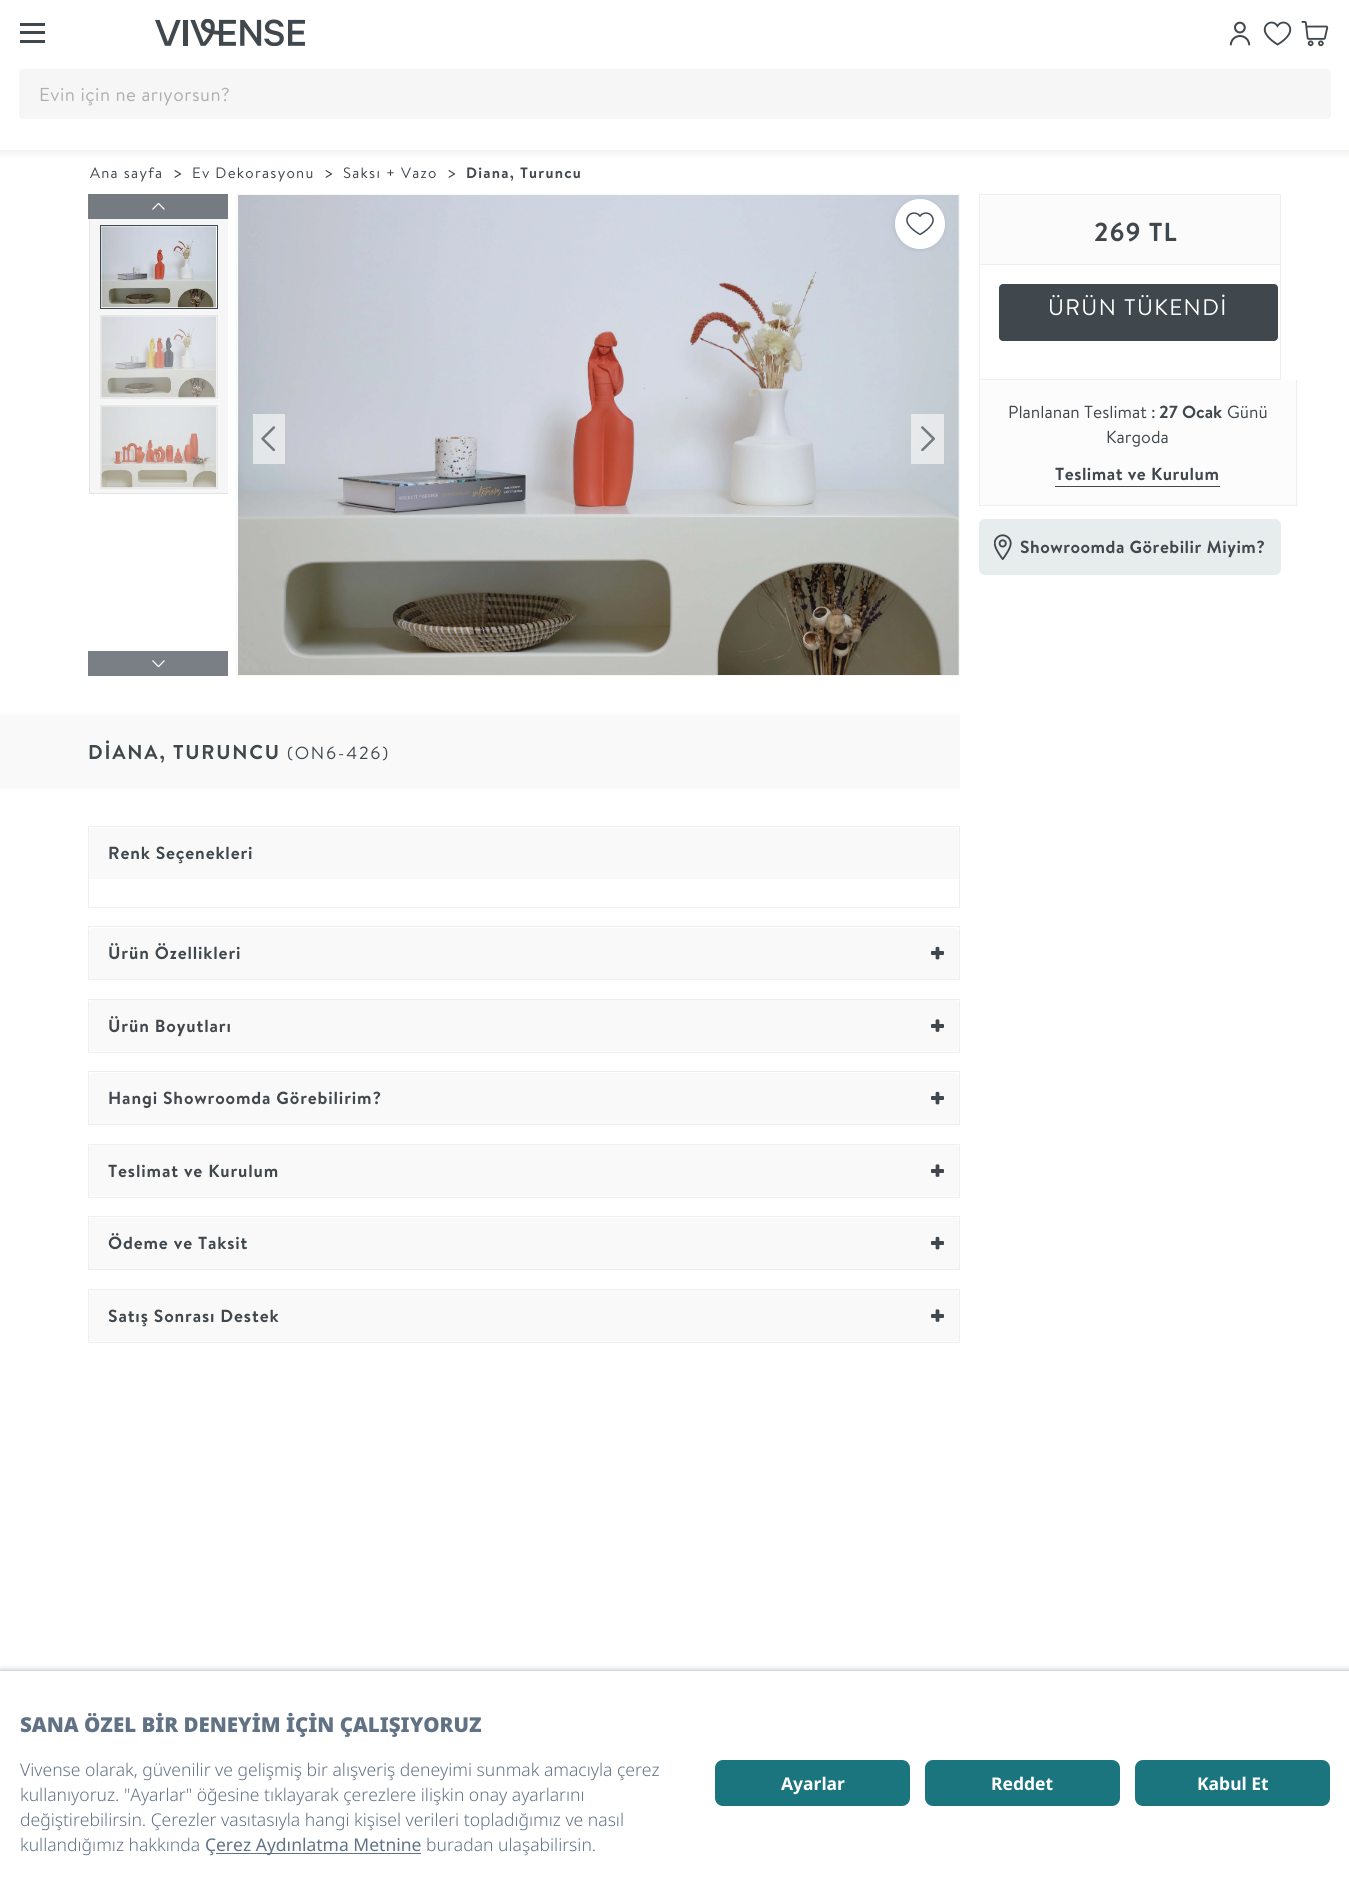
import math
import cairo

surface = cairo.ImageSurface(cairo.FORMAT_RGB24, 1349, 1895)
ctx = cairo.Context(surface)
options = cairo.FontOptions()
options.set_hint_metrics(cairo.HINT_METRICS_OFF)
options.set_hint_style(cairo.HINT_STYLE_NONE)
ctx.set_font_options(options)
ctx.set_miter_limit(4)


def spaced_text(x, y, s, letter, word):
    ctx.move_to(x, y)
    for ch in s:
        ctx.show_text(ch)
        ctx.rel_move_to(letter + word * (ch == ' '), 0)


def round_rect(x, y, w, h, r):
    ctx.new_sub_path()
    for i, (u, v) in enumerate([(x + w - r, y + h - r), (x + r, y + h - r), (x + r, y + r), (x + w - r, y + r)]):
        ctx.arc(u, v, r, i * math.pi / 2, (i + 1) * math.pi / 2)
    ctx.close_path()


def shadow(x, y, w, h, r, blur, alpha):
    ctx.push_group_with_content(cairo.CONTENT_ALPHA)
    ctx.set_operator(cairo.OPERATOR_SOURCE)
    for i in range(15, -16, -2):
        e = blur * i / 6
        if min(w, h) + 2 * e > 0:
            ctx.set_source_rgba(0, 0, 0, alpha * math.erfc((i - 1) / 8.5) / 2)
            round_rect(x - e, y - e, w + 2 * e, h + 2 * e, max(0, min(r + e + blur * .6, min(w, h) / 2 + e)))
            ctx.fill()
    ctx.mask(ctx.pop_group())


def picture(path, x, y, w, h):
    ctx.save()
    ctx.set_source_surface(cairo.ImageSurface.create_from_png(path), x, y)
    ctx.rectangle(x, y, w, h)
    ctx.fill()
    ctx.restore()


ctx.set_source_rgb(1, 1, 1)
ctx.paint()
ctx.set_source_rgb(0.251, 0.282, 0.306)
ctx.rectangle(20, 31, 25, 3)
ctx.fill()
ctx.rectangle(20, 23, 25, 3)
ctx.fill()
ctx.rectangle(20, 40, 25, 3)
ctx.fill()
picture("img1.png", 155, 19, 150, 27)
picture("img2.png", 1229, 21, 22, 25)
picture("img3.png", 1263, 21, 29, 25)
picture("img4.png", 1301, 21, 28, 26)
ctx.set_source_rgb(0.961, 0.961, 0.961)
round_rect(19, 69, 1312, 50, 4)
ctx.fill()
ctx.select_font_face("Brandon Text")
ctx.set_font_size(18.75)
ctx.set_source_rgb(0.678, 0.69, 0.698)
spaced_text(39, 101, "Evin için ne arıyorsun?", 0.5, 0)
gradient = cairo.LinearGradient(675, 160, 675, 150)
gradient.add_color_stop_rgba(0, 1, 1, 1, 1)
gradient.add_color_stop_rgba(1, 0.953, 0.953, 0.949, 1)
ctx.set_source(gradient)
ctx.rectangle(0, 150, 1349, 8)
ctx.fill()
ctx.set_font_size(15)
ctx.set_source_rgb(0.251, 0.282, 0.306)
spaced_text(90, 178, "Ana sayfa", 1.25, 0)
ctx.select_font_face("Brandon Grotesque")
ctx.set_font_size(17.5)
ctx.move_to(174, 178)
ctx.show_text(">")
ctx.select_font_face("Brandon Text")
ctx.set_font_size(15)
spaced_text(192, 178, "Ev Dekorasyonu", 1.25, 0)
ctx.select_font_face("Brandon Grotesque")
ctx.set_font_size(17.5)
ctx.move_to(325, 178)
ctx.show_text(">")
ctx.select_font_face("Brandon Text")
ctx.set_font_size(15)
spaced_text(343, 178, "Saksı + Vazo", 1.25, 0)
ctx.select_font_face("Brandon Grotesque")
ctx.set_font_size(17.5)
ctx.move_to(448, 178)
ctx.show_text(">")
ctx.select_font_face("Brandon Text", cairo.FONT_SLANT_NORMAL, cairo.FONT_WEIGHT_BOLD)
ctx.set_font_size(15)
spaced_text(466, 178, "Diana, Turuncu", 1.25, 0)
ctx.rectangle(979.5, 194.5, 301, 185)
ctx.set_source_rgb(0.937, 0.937, 0.937)
ctx.set_line_width(1)
ctx.stroke()
ctx.set_source_rgb(0.984, 0.984, 0.984)
ctx.rectangle(980, 195, 300, 69)
ctx.fill()
ctx.set_source_rgb(0.937, 0.937, 0.937)
ctx.rectangle(980, 264, 300, 1)
ctx.fill()
ctx.set_font_size(26)
ctx.set_source_rgb(0.251, 0.282, 0.306)
spaced_text(1094, 241, "269 TL", 1, 0)
round_rect(999, 284, 279, 57, 4)
ctx.fill()
ctx.select_font_face("Brandon Text")
ctx.set_font_size(22.5)
ctx.set_source_rgb(1, 1, 1)
spaced_text(1048, 315, "ÜRÜN TÜKENDİ", 1.4, 0)
ctx.set_source_rgb(0.988, 0.988, 0.988)
ctx.rectangle(980, 380, 318, 125)
ctx.fill()
ctx.set_source_rgb(0.937, 0.937, 0.937)
ctx.rectangle(1296, 380, 1, 126)
ctx.fill()
ctx.rectangle(979, 505, 319, 1)
ctx.fill()
ctx.rectangle(979, 380, 1, 126)
ctx.fill()
ctx.set_font_size(17.5)
ctx.set_source_rgb(0.251, 0.282, 0.306)
ctx.move_to(1008, 418)
ctx.show_text("Planlanan Teslimat :")
ctx.select_font_face("Brandon Text", cairo.FONT_SLANT_NORMAL, cairo.FONT_WEIGHT_BOLD)
ctx.move_to(1159, 418)
ctx.show_text("27 Ocak")
ctx.select_font_face("Brandon Text")
ctx.move_to(1227, 418)
ctx.show_text("Günü")
ctx.move_to(1106, 443)
ctx.show_text("Kargoda")
ctx.select_font_face("Brandon Text", cairo.FONT_SLANT_NORMAL, cairo.FONT_WEIGHT_BOLD)
spaced_text(1055, 480, "Teslimat ve Kurulum", 0.5, 0)
ctx.rectangle(1055, 486, 165, 1)
ctx.fill()
ctx.set_source_rgb(0.906, 0.922, 0.929)
round_rect(979, 519, 302, 56, 6)
ctx.fill()
picture("img5.png", 994, 534, 18, 26)
ctx.set_source_rgb(0.251, 0.282, 0.306)
spaced_text(1020, 553, "Showroomda Görebilir Miyim?", 0.5, 0)
ctx.set_source_rgb(0.961, 0.961, 0.961)
ctx.rectangle(90, 195, 138, 298)
ctx.fill()
ctx.save()
ctx.rectangle(88, 194, 140, 482)
ctx.clip()
ctx.rectangle(89.5, 194.5, 139, 299)
ctx.set_source_rgb(0.89, 0.894, 0.894)
ctx.stroke()
ctx.restore()
ctx.set_source_rgba(0.251, 0.282, 0.31, 0.7)
ctx.rectangle(88, 194, 140, 25)
ctx.fill()
picture("img6.png", 152, 203, 13, 7)
ctx.set_source_rgb(1, 1, 1)
ctx.rectangle(100.5, 225.5, 117, 83)
ctx.fill_preserve()
ctx.set_source_rgb(0.251, 0.282, 0.306)
ctx.stroke()
picture("img7.png", 101, 226, 116, 82)
ctx.set_source_rgb(0.945, 0.945, 0.945)
ctx.rectangle(100.5, 315.5, 117, 83)
ctx.fill_preserve()
ctx.set_source_rgb(0.906, 0.906, 0.906)
ctx.stroke()
picture("img8.png", 101, 316, 115, 82)
ctx.set_source_rgb(0.945, 0.945, 0.945)
ctx.rectangle(100.5, 405.5, 117, 83)
ctx.fill_preserve()
ctx.set_source_rgb(0.906, 0.906, 0.906)
ctx.stroke()
picture("img9.png", 101, 406, 116, 82)
ctx.set_source_rgb(0.475, 0.498, 0.518)
ctx.rectangle(88, 651, 140, 25)
ctx.fill()
picture("img10.png", 152, 660, 13, 8)
ctx.rectangle(236.5, 194.5, 723, 481)
ctx.set_source_rgb(0.961, 0.965, 0.965)
ctx.stroke()
picture("img12.png", 238, 195, 721, 480)
ctx.set_source_rgb(0.251, 0.282, 0.306)
shadow(894, 200, 50, 50, 25, 2.5, 0.13)
ctx.set_source_rgb(1, 1, 1)
ctx.arc(920, 224, 25, 0, 2 * math.pi)
ctx.fill()
picture("img11.png", 906, 212, 28, 24)
ctx.set_source_rgba(0.961, 0.961, 0.961, 0.7)
ctx.rectangle(253, 414, 32, 50)
ctx.fill()
picture("img13.png", 261, 426, 15, 25)
ctx.rectangle(911, 414, 33, 50)
ctx.fill()
picture("img14.png", 921, 426, 14, 25)
ctx.set_source_rgb(0.976, 0.976, 0.976)
ctx.rectangle(0, 714, 960, 75)
ctx.fill()
ctx.set_font_size(20)
ctx.set_source_rgb(0.251, 0.282, 0.306)
spaced_text(88, 759, "DİANA, TURUNCU", 1.75, 0)
ctx.select_font_face("Brandon Text")
ctx.set_font_size(17.5)
spaced_text(287, 759, "(ON6-426)", 1.75, 0)
ctx.rectangle(88.5, 826.5, 871, 81)
ctx.set_source_rgb(0.937, 0.937, 0.937)
ctx.stroke()
ctx.set_source_rgb(0.976, 0.976, 0.976)
ctx.new_path()
ctx.move_to(93, 828)
ctx.line_to(955, 828)
ctx.curve_to(957, 828, 959, 830, 959, 832)
ctx.line_to(959, 879)
ctx.line_to(89, 879)
ctx.line_to(89, 832)
ctx.curve_to(89, 830, 91, 828, 93, 828)
ctx.close_path()
ctx.fill()
ctx.select_font_face("Brandon Text", cairo.FONT_SLANT_NORMAL, cairo.FONT_WEIGHT_BOLD)
ctx.set_source_rgb(0.251, 0.282, 0.306)
spaced_text(108, 859, "Renk Seçenekleri", 0.85, 0)
ctx.rectangle(88.5, 926.5, 871, 53)
ctx.set_source_rgb(0.937, 0.937, 0.937)
ctx.stroke()
ctx.set_source_rgb(0.976, 0.976, 0.976)
ctx.new_path()
ctx.move_to(93, 928)
ctx.line_to(955, 928)
ctx.curve_to(957, 928, 959, 930, 959, 932)
ctx.line_to(959, 979)
ctx.line_to(89, 979)
ctx.line_to(89, 932)
ctx.curve_to(89, 930, 91, 928, 93, 928)
ctx.close_path()
ctx.fill()
ctx.set_source_rgb(0.251, 0.282, 0.306)
spaced_text(108, 959, "Ürün Özellikleri", 0.85, 0)
picture("img15.png", 931, 946, 13, 14)
ctx.rectangle(88.5, 999.5, 871, 53)
ctx.set_source_rgb(0.937, 0.937, 0.937)
ctx.stroke()
ctx.set_source_rgb(0.976, 0.976, 0.976)
ctx.new_path()
ctx.move_to(93, 1000)
ctx.line_to(955, 1000)
ctx.curve_to(957, 1000, 959, 1002, 959, 1004)
ctx.line_to(959, 1051)
ctx.line_to(89, 1051)
ctx.line_to(89, 1004)
ctx.curve_to(89, 1002, 91, 1000, 93, 1000)
ctx.close_path()
ctx.fill()
ctx.set_source_rgb(0.251, 0.282, 0.306)
spaced_text(108, 1032, "Ürün Boyutları", 0.85, 0)
picture("img16.png", 931, 1019, 13, 13)
ctx.rectangle(88.5, 1071.5, 871, 53)
ctx.set_source_rgb(0.937, 0.937, 0.937)
ctx.stroke()
ctx.set_source_rgb(0.976, 0.976, 0.976)
ctx.new_path()
ctx.move_to(93, 1073)
ctx.line_to(955, 1073)
ctx.curve_to(957, 1073, 959, 1075, 959, 1077)
ctx.line_to(959, 1124)
ctx.line_to(89, 1124)
ctx.line_to(89, 1077)
ctx.curve_to(89, 1075, 91, 1073, 93, 1073)
ctx.close_path()
ctx.fill()
ctx.set_source_rgb(0.251, 0.282, 0.306)
spaced_text(108, 1104, "Hangi Showroomda Görebilirim?", 0.85, 0)
picture("img15.png", 931, 1091, 13, 14)
ctx.rectangle(88.5, 1144.5, 871, 53)
ctx.set_source_rgb(0.937, 0.937, 0.937)
ctx.stroke()
ctx.set_source_rgb(0.976, 0.976, 0.976)
ctx.new_path()
ctx.move_to(93, 1145)
ctx.line_to(955, 1145)
ctx.curve_to(957, 1145, 959, 1147, 959, 1149)
ctx.line_to(959, 1196)
ctx.line_to(89, 1196)
ctx.line_to(89, 1149)
ctx.curve_to(89, 1147, 91, 1145, 93, 1145)
ctx.close_path()
ctx.fill()
ctx.set_source_rgb(0.251, 0.282, 0.306)
spaced_text(108, 1177, "Teslimat ve Kurulum", 0.85, 0)
picture("img16.png", 931, 1164, 13, 13)
ctx.rectangle(88.5, 1216.5, 871, 53)
ctx.set_source_rgb(0.937, 0.937, 0.937)
ctx.stroke()
ctx.set_source_rgb(0.976, 0.976, 0.976)
ctx.new_path()
ctx.move_to(93, 1218)
ctx.line_to(955, 1218)
ctx.curve_to(957, 1218, 959, 1220, 959, 1222)
ctx.line_to(959, 1269)
ctx.line_to(89, 1269)
ctx.line_to(89, 1222)
ctx.curve_to(89, 1220, 91, 1218, 93, 1218)
ctx.close_path()
ctx.fill()
ctx.set_source_rgb(0.251, 0.282, 0.306)
spaced_text(108, 1249, "Ödeme ve Taksit", 0.85, 0)
picture("img15.png", 931, 1236, 13, 14)
ctx.rectangle(88.5, 1289.5, 871, 53)
ctx.set_source_rgb(0.937, 0.937, 0.937)
ctx.stroke()
ctx.set_source_rgb(0.976, 0.976, 0.976)
ctx.new_path()
ctx.move_to(93, 1290)
ctx.line_to(955, 1290)
ctx.curve_to(957, 1290, 959, 1292, 959, 1294)
ctx.line_to(959, 1341)
ctx.line_to(89, 1341)
ctx.line_to(89, 1294)
ctx.curve_to(89, 1292, 91, 1290, 93, 1290)
ctx.close_path()
ctx.fill()
ctx.set_source_rgb(0.251, 0.282, 0.306)
spaced_text(108, 1322, "Satış Sonrası Destek", 0.85, 0)
picture("img16.png", 931, 1309, 13, 13)
ctx.set_source_rgb(0.608, 0.655, 0.718)
shadow(0, 1671, 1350, 224, 0, 3, 1)
ctx.set_source_rgb(1, 1, 1)
ctx.rectangle(0, 1671, 1349, 224)
ctx.fill()
ctx.select_font_face("Noto Sans Black")
ctx.set_font_size(20.5)
ctx.set_source_rgb(0.384, 0.447, 0.522)
ctx.move_to(20, 1732)
ctx.show_text("SANA ÖZEL BİR DENEYİM İÇİN ÇALIŞIYORUZ")
ctx.select_font_face("Noto Sans Light")
ctx.set_font_size(17.5)
ctx.move_to(20, 1776)
ctx.show_text("Vivense olarak, güvenilir ve gelişmiş bir alışveriş deneyimi sunmak amacıyla çerez")
ctx.move_to(20, 1801)
ctx.show_text("kullanıyoruz. \"Ayarlar\" öğesine tıklayarak çerezlere ilişkin onay ayarlarını")
ctx.move_to(20, 1826)
ctx.show_text("değiştirebilirsin. Çerezler vasıtasıyla hangi kişisel verileri topladığımız ve nasıl")
ctx.move_to(20, 1851)
ctx.show_text("kullandığımız hakkında")
ctx.select_font_face("Noto Sans")
ctx.move_to(205, 1851)
ctx.show_text("Ç")
ctx.rectangle(216, 1853, 205, 1)
ctx.fill()
ctx.move_to(216, 1851)
ctx.show_text("erez Aydınlatma Metnine")
ctx.select_font_face("Noto Sans Light")
ctx.move_to(426, 1851)
ctx.show_text("buradan ulaşabilirsin.")
ctx.set_source_rgb(0.106, 0.459, 0.494)
round_rect(715, 1760, 195, 46, 8)
ctx.fill()
ctx.select_font_face("Noto Sans", cairo.FONT_SLANT_NORMAL, cairo.FONT_WEIGHT_BOLD)
ctx.set_source_rgb(1, 1, 1)
ctx.move_to(781, 1790)
ctx.show_text("Ayarlar")
ctx.set_source_rgb(0.106, 0.459, 0.494)
round_rect(925, 1760, 195, 46, 8)
ctx.fill()
ctx.set_source_rgb(1, 1, 1)
ctx.move_to(991, 1790)
ctx.show_text("Reddet")
ctx.set_source_rgb(0.106, 0.459, 0.494)
round_rect(1135, 1760, 195, 46, 8)
ctx.fill()
ctx.set_source_rgb(1, 1, 1)
ctx.move_to(1197, 1790)
ctx.show_text("Kabul Et")
surface.write_to_png("page.png")
